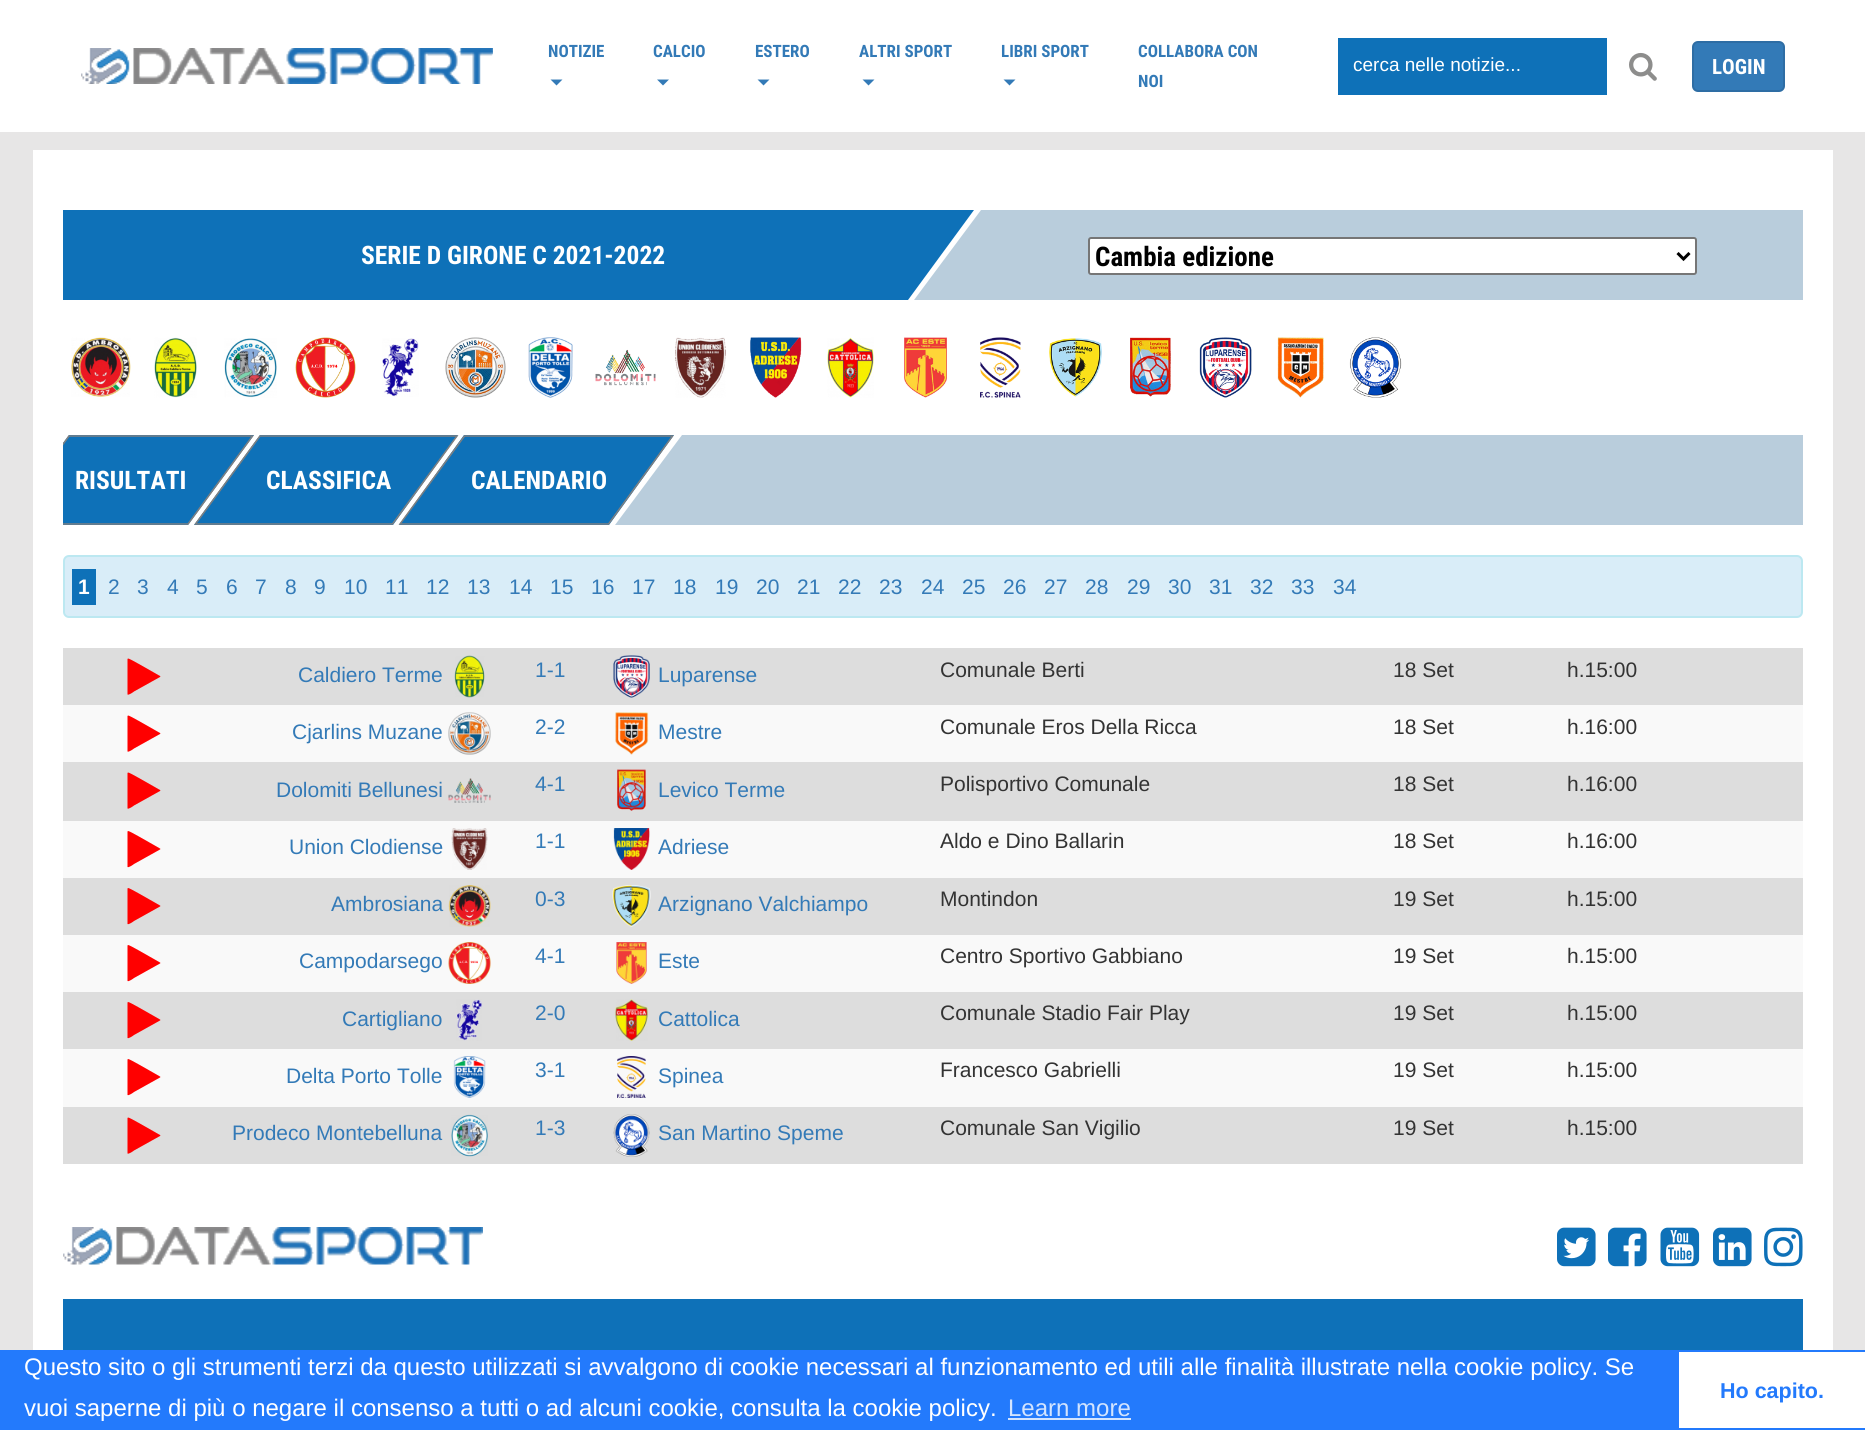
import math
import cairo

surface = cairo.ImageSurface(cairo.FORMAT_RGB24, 1865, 1430)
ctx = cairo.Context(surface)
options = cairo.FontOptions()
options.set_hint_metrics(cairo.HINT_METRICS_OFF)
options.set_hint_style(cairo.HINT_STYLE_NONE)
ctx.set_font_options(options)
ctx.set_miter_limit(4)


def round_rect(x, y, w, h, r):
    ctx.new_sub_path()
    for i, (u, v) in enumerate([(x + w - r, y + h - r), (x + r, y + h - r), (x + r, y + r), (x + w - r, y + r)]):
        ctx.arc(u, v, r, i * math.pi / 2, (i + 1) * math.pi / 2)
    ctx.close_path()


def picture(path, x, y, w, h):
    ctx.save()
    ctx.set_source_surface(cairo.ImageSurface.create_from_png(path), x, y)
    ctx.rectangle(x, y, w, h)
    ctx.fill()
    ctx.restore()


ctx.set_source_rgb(0.906, 0.902, 0.902)
ctx.paint()
ctx.set_source_rgb(1, 1, 1)
ctx.rectangle(0, 0, 1865, 132)
ctx.fill()
picture("img1.png", 81, 48, 412, 36)
ctx.select_font_face("Roboto Condensed", cairo.FONT_SLANT_NORMAL, cairo.FONT_WEIGHT_BOLD)
ctx.set_font_size(17)
ctx.set_source_rgb(0.2, 0.478, 0.718)
ctx.move_to(548, 57)
ctx.show_text("NOTIZIE")
ctx.new_path()
ctx.move_to(550.5, 79.5)
ctx.line_to(562.5, 79.5)
ctx.line_to(556.5, 85.5)
ctx.close_path()
ctx.fill()
ctx.move_to(653, 57)
ctx.show_text("CALCIO")
ctx.new_path()
ctx.move_to(657, 79.5)
ctx.line_to(669, 79.5)
ctx.line_to(663, 85.5)
ctx.close_path()
ctx.fill()
ctx.move_to(755, 57)
ctx.show_text("ESTERO")
ctx.new_path()
ctx.move_to(757.5, 79.5)
ctx.line_to(769.5, 79.5)
ctx.line_to(763.5, 85.5)
ctx.close_path()
ctx.fill()
ctx.move_to(859, 57)
ctx.show_text("ALTRI SPORT")
ctx.new_path()
ctx.move_to(862.5, 79.5)
ctx.line_to(874.5, 79.5)
ctx.line_to(868.5, 85.5)
ctx.close_path()
ctx.fill()
ctx.move_to(1001, 57)
ctx.show_text("LIBRI SPORT")
ctx.new_path()
ctx.move_to(1003.5, 79.5)
ctx.line_to(1015.5, 79.5)
ctx.line_to(1009.5, 85.5)
ctx.close_path()
ctx.fill()
ctx.move_to(1138, 57)
ctx.show_text("COLLABORA CON")
ctx.move_to(1138, 87)
ctx.show_text("NOI")
ctx.set_source_rgb(0.055, 0.443, 0.722)
ctx.rectangle(1338, 38, 269, 57)
ctx.fill()
ctx.select_font_face("Liberation Sans")
ctx.set_font_size(19)
ctx.set_source_rgb(1, 1, 1)
ctx.move_to(1353, 71)
ctx.show_text("cerca nelle notizie...")
picture("img2.png", 1629, 52, 28, 29)
ctx.set_source_rgb(0.2, 0.478, 0.718)
round_rect(1693, 42, 91, 49, 5)
ctx.fill_preserve()
ctx.set_source_rgb(0.18, 0.427, 0.643)
ctx.stroke()
ctx.select_font_face("Roboto Condensed", cairo.FONT_SLANT_NORMAL, cairo.FONT_WEIGHT_BOLD)
ctx.set_font_size(21)
ctx.set_source_rgb(1, 1, 1)
ctx.move_to(1712, 74)
ctx.show_text("LOGIN")
ctx.rectangle(33, 150, 1800, 1200)
ctx.fill()
ctx.set_source_rgb(0.725, 0.804, 0.863)
ctx.new_path()
ctx.move_to(1803, 300)
ctx.line_to(914, 300)
ctx.line_to(981, 210)
ctx.line_to(1803, 210)
ctx.close_path()
ctx.fill()
ctx.save()
ctx.rectangle(63, 210, 1740, 90)
ctx.clip()
ctx.set_source_rgb(0.055, 0.443, 0.722)
ctx.new_path()
ctx.move_to(58, 210)
ctx.line_to(974, 210)
ctx.line_to(908, 300)
ctx.line_to(-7, 300)
ctx.close_path()
ctx.fill()
ctx.restore()
ctx.set_font_size(25.5)
ctx.set_source_rgb(1, 1, 1)
ctx.move_to(361, 264)
ctx.show_text("SERIE D GIRONE C 2021-2022")
round_rect(1089, 238, 607, 36, 2)
ctx.fill_preserve()
ctx.set_source_rgb(0.463, 0.463, 0.463)
ctx.stroke()
ctx.new_path()
ctx.move_to(1677.5, 253)
ctx.line_to(1683.5, 259)
ctx.line_to(1689.5, 253)
ctx.set_source_rgb(0, 0, 0)
ctx.set_line_width(3)
ctx.stroke()
ctx.set_font_size(27)
ctx.move_to(1095, 266)
ctx.show_text("Cambia edizione")
picture("img3.png", 71, 337, 60, 60)
picture("img4.png", 154, 337, 43, 61)
picture("img5.png", 224, 338, 53, 60)
picture("img6.png", 295, 337, 61, 61)
picture("img7.png", 382, 338, 37, 59)
picture("img8.png", 445, 337, 61, 61)
picture("img9.png", 528, 337, 45, 61)
picture("img10.png", 595, 349, 61, 37)
picture("img11.png", 675, 337, 51, 61)
picture("img12.png", 750, 337, 52, 61)
picture("img13.png", 827, 337, 47, 61)
picture("img14.png", 904, 337, 43, 61)
picture("img15.png", 980, 337, 41, 61)
picture("img16.png", 1049, 338, 53, 59)
picture("img17.png", 1130, 337, 41, 60)
picture("img18.png", 1199, 337, 53, 61)
picture("img19.png", 1277, 337, 47, 61)
picture("img20.png", 1349, 337, 53, 61)
ctx.save()
ctx.rectangle(63, 435, 1740, 90)
ctx.clip()
ctx.set_source_rgb(0.055, 0.443, 0.722)
ctx.new_path()
ctx.move_to(69, 435)
ctx.line_to(254, 435)
ctx.line_to(188, 525)
ctx.line_to(3, 525)
ctx.close_path()
ctx.fill()
ctx.new_path()
ctx.move_to(69, 436)
ctx.line_to(252.5, 436)
ctx.line_to(188, 524)
ctx.line_to(4.5, 524)
ctx.close_path()
ctx.set_source_rgb(0.502, 0.502, 0.502)
ctx.set_line_width(1.5)
ctx.stroke()
ctx.restore()
ctx.set_font_size(25.5)
ctx.set_source_rgb(1, 1, 1)
ctx.move_to(75, 489)
ctx.show_text("RISULTATI")
ctx.set_source_rgb(0.055, 0.443, 0.722)
ctx.new_path()
ctx.move_to(260, 435)
ctx.line_to(458, 435)
ctx.line_to(393, 525)
ctx.line_to(194, 525)
ctx.close_path()
ctx.fill()
ctx.new_path()
ctx.move_to(260, 436)
ctx.line_to(457, 436)
ctx.line_to(392.5, 524)
ctx.line_to(195.5, 524)
ctx.close_path()
ctx.set_source_rgb(0.502, 0.502, 0.502)
ctx.set_line_width(1.5)
ctx.stroke()
ctx.set_source_rgb(1, 1, 1)
ctx.move_to(266, 489)
ctx.show_text("CLASSIFICA")
ctx.set_source_rgb(0.725, 0.804, 0.863)
ctx.new_path()
ctx.move_to(1803, 525)
ctx.line_to(615, 525)
ctx.line_to(682, 435)
ctx.line_to(1803, 435)
ctx.close_path()
ctx.fill()
ctx.set_source_rgb(0.055, 0.443, 0.722)
ctx.new_path()
ctx.move_to(464, 435)
ctx.line_to(674, 435)
ctx.line_to(609, 525)
ctx.line_to(399, 525)
ctx.close_path()
ctx.fill()
ctx.new_path()
ctx.move_to(464.5, 436)
ctx.line_to(672.5, 436)
ctx.line_to(608.5, 524)
ctx.line_to(400, 524)
ctx.close_path()
ctx.set_source_rgb(0.502, 0.502, 0.502)
ctx.stroke()
ctx.set_source_rgb(1, 1, 1)
ctx.move_to(471, 489)
ctx.show_text("CALENDARIO")
ctx.set_source_rgb(0.851, 0.929, 0.969)
round_rect(64, 556, 1738, 61, 5)
ctx.fill_preserve()
ctx.set_source_rgb(0.737, 0.91, 0.945)
ctx.set_line_width(2)
ctx.stroke()
ctx.set_source_rgb(0.055, 0.443, 0.722)
ctx.rectangle(72, 569, 24, 36)
ctx.fill()
ctx.select_font_face("Liberation Sans", cairo.FONT_SLANT_NORMAL, cairo.FONT_WEIGHT_BOLD)
ctx.set_font_size(21)
ctx.set_source_rgb(1, 1, 1)
ctx.move_to(78, 594)
ctx.show_text("1")
ctx.select_font_face("Liberation Sans")
ctx.set_source_rgb(0.2, 0.478, 0.718)
ctx.move_to(108, 594)
ctx.show_text("2")
ctx.move_to(137, 594)
ctx.show_text("3")
ctx.move_to(167, 594)
ctx.show_text("4")
ctx.move_to(196, 594)
ctx.show_text("5")
ctx.move_to(226, 594)
ctx.show_text("6")
ctx.move_to(255, 594)
ctx.show_text("7")
ctx.move_to(285, 594)
ctx.show_text("8")
ctx.move_to(314, 594)
ctx.show_text("9")
ctx.move_to(344, 594)
ctx.show_text("10")
ctx.move_to(385, 594)
ctx.show_text("11")
ctx.move_to(426, 594)
ctx.show_text("12")
ctx.move_to(467, 594)
ctx.show_text("13")
ctx.move_to(509, 594)
ctx.show_text("14")
ctx.move_to(550, 594)
ctx.show_text("15")
ctx.move_to(591, 594)
ctx.show_text("16")
ctx.move_to(632, 594)
ctx.show_text("17")
ctx.move_to(673, 594)
ctx.show_text("18")
ctx.move_to(715, 594)
ctx.show_text("19")
ctx.move_to(756, 594)
ctx.show_text("20")
ctx.move_to(797, 594)
ctx.show_text("21")
ctx.move_to(838, 594)
ctx.show_text("22")
ctx.move_to(879, 594)
ctx.show_text("23")
ctx.move_to(921, 594)
ctx.show_text("24")
ctx.move_to(962, 594)
ctx.show_text("25")
ctx.move_to(1003, 594)
ctx.show_text("26")
ctx.move_to(1044, 594)
ctx.show_text("27")
ctx.move_to(1085, 594)
ctx.show_text("28")
ctx.move_to(1127, 594)
ctx.show_text("29")
ctx.move_to(1168, 594)
ctx.show_text("30")
ctx.move_to(1209, 594)
ctx.show_text("31")
ctx.move_to(1250, 594)
ctx.show_text("32")
ctx.move_to(1291, 594)
ctx.show_text("33")
ctx.move_to(1333, 594)
ctx.show_text("34")
ctx.set_source_rgb(0.867, 0.867, 0.867)
ctx.rectangle(63, 648, 1740, 57)
ctx.fill()
ctx.set_source_rgb(1, 0, 0)
ctx.new_path()
ctx.move_to(160, 677)
ctx.line_to(134, 691.5)
ctx.curve_to(133.5, 692, 128.5, 695.5, 127.5, 694.5)
ctx.line_to(127.5, 659)
ctx.line_to(128, 658.5)
ctx.curve_to(129, 658, 147.5, 669, 149.5, 670)
ctx.line_to(160, 676)
ctx.line_to(160.5, 676.5)
ctx.close_path()
ctx.fill()
ctx.set_source_rgb(0.2, 0.478, 0.718)
ctx.move_to(298, 682)
ctx.show_text("Caldiero Terme")
picture("img21.png", 454, 655, 31, 43)
ctx.move_to(535, 677)
ctx.show_text("1-1")
picture("img22.png", 613, 655, 37, 43)
ctx.move_to(658, 682)
ctx.show_text("Luparense")
ctx.set_source_rgb(0.2, 0.2, 0.2)
ctx.move_to(940, 677)
ctx.show_text("Comunale Berti")
ctx.move_to(1393, 677)
ctx.show_text("18 Set")
ctx.move_to(1567, 677)
ctx.show_text("h.15:00")
ctx.set_source_rgb(0.973, 0.973, 0.973)
ctx.rectangle(63, 705, 1740, 57)
ctx.fill()
ctx.set_source_rgb(1, 0, 0)
ctx.new_path()
ctx.move_to(160, 734)
ctx.line_to(134, 748.5)
ctx.curve_to(133.5, 749, 128.5, 752.5, 127.5, 751.5)
ctx.line_to(127.5, 716)
ctx.line_to(128, 715.5)
ctx.curve_to(129, 715, 147.5, 726, 149.5, 727)
ctx.line_to(160, 733)
ctx.line_to(160.5, 733.5)
ctx.close_path()
ctx.fill()
ctx.set_source_rgb(0.2, 0.478, 0.718)
ctx.move_to(292, 739)
ctx.show_text("Cjarlins Muzane")
picture("img23.png", 448, 712, 43, 43)
ctx.move_to(535, 734)
ctx.show_text("2-2")
picture("img24.png", 615, 712, 34, 43)
ctx.move_to(658, 739)
ctx.show_text("Mestre")
ctx.set_source_rgb(0.2, 0.2, 0.2)
ctx.move_to(940, 734)
ctx.show_text("Comunale Eros Della Ricca")
ctx.move_to(1393, 734)
ctx.show_text("18 Set")
ctx.move_to(1567, 734)
ctx.show_text("h.16:00")
ctx.set_source_rgb(0.867, 0.867, 0.867)
ctx.rectangle(63, 762, 1740, 59)
ctx.fill()
ctx.set_source_rgb(1, 0, 0)
ctx.new_path()
ctx.move_to(160, 791)
ctx.line_to(134, 805.5)
ctx.curve_to(133.5, 806, 128.5, 809.5, 127.5, 808.5)
ctx.line_to(127.5, 773)
ctx.line_to(128, 772.5)
ctx.curve_to(129, 772, 147.5, 783, 149.5, 784)
ctx.line_to(160, 790)
ctx.line_to(160.5, 790.5)
ctx.close_path()
ctx.fill()
ctx.set_source_rgb(0.2, 0.478, 0.718)
ctx.move_to(276, 797)
ctx.show_text("Dolomiti Bellunesi")
picture("img25.png", 448, 778, 43, 25)
ctx.move_to(535, 791)
ctx.show_text("4-1")
picture("img26.png", 617, 769, 29, 42)
ctx.move_to(658, 797)
ctx.show_text("Levico Terme")
ctx.set_source_rgb(0.2, 0.2, 0.2)
ctx.move_to(940, 791)
ctx.show_text("Polisportivo Comunale")
ctx.move_to(1393, 791)
ctx.show_text("18 Set")
ctx.move_to(1567, 791)
ctx.show_text("h.16:00")
ctx.set_source_rgb(0.973, 0.973, 0.973)
ctx.rectangle(63, 821, 1740, 57)
ctx.fill()
ctx.set_source_rgb(1, 0, 0)
ctx.new_path()
ctx.move_to(160, 849.5)
ctx.line_to(134, 864)
ctx.curve_to(133.5, 864.5, 128.5, 868, 127.5, 867)
ctx.line_to(127.5, 831.5)
ctx.line_to(128, 831)
ctx.curve_to(129, 830.5, 147.5, 841.5, 149.5, 842.5)
ctx.line_to(160, 848.5)
ctx.line_to(160.5, 849)
ctx.close_path()
ctx.fill()
ctx.set_source_rgb(0.2, 0.478, 0.718)
ctx.move_to(289, 854)
ctx.show_text("Union Clodiense")
picture("img27.png", 451, 828, 37, 42)
ctx.move_to(535, 848)
ctx.show_text("1-1")
picture("img28.png", 613, 828, 37, 42)
ctx.move_to(658, 854)
ctx.show_text("Adriese")
ctx.set_source_rgb(0.2, 0.2, 0.2)
ctx.move_to(940, 848)
ctx.show_text("Aldo e Dino Ballarin")
ctx.move_to(1393, 848)
ctx.show_text("18 Set")
ctx.move_to(1567, 848)
ctx.show_text("h.16:00")
ctx.set_source_rgb(0.867, 0.867, 0.867)
ctx.rectangle(63, 878, 1740, 57)
ctx.fill()
ctx.set_source_rgb(1, 0, 0)
ctx.new_path()
ctx.move_to(160, 906.5)
ctx.line_to(134, 921)
ctx.curve_to(133.5, 921.5, 128.5, 925, 127.5, 924)
ctx.line_to(127.5, 888.5)
ctx.line_to(128, 888)
ctx.curve_to(129, 887.5, 147.5, 898.5, 149.5, 899.5)
ctx.line_to(160, 905.5)
ctx.line_to(160.5, 906)
ctx.close_path()
ctx.fill()
ctx.set_source_rgb(0.2, 0.478, 0.718)
ctx.move_to(331, 911)
ctx.show_text("Ambrosiana")
picture("img29.png", 448, 885, 43, 42)
ctx.move_to(535, 906)
ctx.show_text("0-3")
picture("img30.png", 612, 885, 39, 42)
ctx.move_to(658, 911)
ctx.show_text("Arzignano Valchiampo")
ctx.set_source_rgb(0.2, 0.2, 0.2)
ctx.move_to(940, 906)
ctx.show_text("Montindon")
ctx.move_to(1393, 906)
ctx.show_text("19 Set")
ctx.move_to(1567, 906)
ctx.show_text("h.15:00")
ctx.set_source_rgb(0.973, 0.973, 0.973)
ctx.rectangle(63, 935, 1740, 57)
ctx.fill()
ctx.set_source_rgb(1, 0, 0)
ctx.new_path()
ctx.move_to(160, 963.5)
ctx.line_to(134, 978)
ctx.curve_to(133.5, 978.5, 128.5, 982, 127.5, 981)
ctx.line_to(127.5, 945.5)
ctx.line_to(128, 945)
ctx.curve_to(129, 944.5, 147.5, 955.5, 149.5, 956.5)
ctx.line_to(160, 962.5)
ctx.line_to(160.5, 963)
ctx.close_path()
ctx.fill()
ctx.set_source_rgb(0.2, 0.478, 0.718)
ctx.move_to(299, 968)
ctx.show_text("Campodarsego")
picture("img31.png", 448, 942, 43, 42)
ctx.move_to(535, 963)
ctx.show_text("4-1")
picture("img32.png", 616, 942, 31, 42)
ctx.move_to(658, 968)
ctx.show_text("Este")
ctx.set_source_rgb(0.2, 0.2, 0.2)
ctx.move_to(940, 963)
ctx.show_text("Centro Sportivo Gabbiano")
ctx.move_to(1393, 963)
ctx.show_text("19 Set")
ctx.move_to(1567, 963)
ctx.show_text("h.15:00")
ctx.set_source_rgb(0.867, 0.867, 0.867)
ctx.rectangle(63, 992, 1740, 57)
ctx.fill()
ctx.set_source_rgb(1, 0, 0)
ctx.new_path()
ctx.move_to(160, 1020.5)
ctx.line_to(134, 1035)
ctx.curve_to(133.5, 1035.5, 128.5, 1039, 127.5, 1038)
ctx.line_to(127.5, 1002.5)
ctx.line_to(128, 1002)
ctx.curve_to(129, 1001.5, 147.5, 1012.5, 149.5, 1013.5)
ctx.line_to(160, 1019.5)
ctx.line_to(160.5, 1020)
ctx.close_path()
ctx.fill()
ctx.set_source_rgb(0.2, 0.478, 0.718)
ctx.move_to(342, 1026)
ctx.show_text("Cartigliano")
picture("img33.png", 456, 999, 26, 42)
ctx.move_to(535, 1020)
ctx.show_text("2-0")
picture("img34.png", 614, 999, 35, 42)
ctx.move_to(658, 1026)
ctx.show_text("Cattolica")
ctx.set_source_rgb(0.2, 0.2, 0.2)
ctx.move_to(940, 1020)
ctx.show_text("Comunale Stadio Fair Play")
ctx.move_to(1393, 1020)
ctx.show_text("19 Set")
ctx.move_to(1567, 1020)
ctx.show_text("h.15:00")
ctx.set_source_rgb(0.973, 0.973, 0.973)
ctx.rectangle(63, 1049, 1740, 58)
ctx.fill()
ctx.set_source_rgb(1, 0, 0)
ctx.new_path()
ctx.move_to(160, 1077.5)
ctx.line_to(134, 1092)
ctx.curve_to(133.5, 1092.5, 128.5, 1096, 127.5, 1095)
ctx.line_to(127.5, 1059.5)
ctx.line_to(128, 1059)
ctx.curve_to(129, 1058.5, 147.5, 1069.5, 149.5, 1070.5)
ctx.line_to(160, 1076.5)
ctx.line_to(160.5, 1077)
ctx.close_path()
ctx.fill()
ctx.set_source_rgb(0.2, 0.478, 0.718)
ctx.move_to(286, 1083)
ctx.show_text("Delta Porto Tolle")
picture("img35.png", 453, 1056, 33, 42)
ctx.move_to(535, 1077)
ctx.show_text("3-1")
picture("img36.png", 617, 1056, 29, 42)
ctx.move_to(658, 1083)
ctx.show_text("Spinea")
ctx.set_source_rgb(0.2, 0.2, 0.2)
ctx.move_to(940, 1077)
ctx.show_text("Francesco Gabrielli")
ctx.move_to(1393, 1077)
ctx.show_text("19 Set")
ctx.move_to(1567, 1077)
ctx.show_text("h.15:00")
ctx.set_source_rgb(0.867, 0.867, 0.867)
ctx.rectangle(63, 1107, 1740, 57)
ctx.fill()
ctx.set_source_rgb(1, 0, 0)
ctx.new_path()
ctx.move_to(160, 1136)
ctx.line_to(134, 1150.5)
ctx.curve_to(133.5, 1151, 128.5, 1154.5, 127.5, 1153.5)
ctx.line_to(127.5, 1118)
ctx.line_to(128, 1117.5)
ctx.curve_to(129, 1117, 147.5, 1128, 149.5, 1129)
ctx.line_to(160, 1135)
ctx.line_to(160.5, 1135.5)
ctx.close_path()
ctx.fill()
ctx.set_source_rgb(0.2, 0.478, 0.718)
ctx.move_to(232, 1140)
ctx.show_text("Prodeco Montebelluna")
picture("img37.png", 451, 1114, 37, 43)
ctx.move_to(535, 1135)
ctx.show_text("1-3")
picture("img38.png", 613, 1114, 37, 43)
ctx.move_to(658, 1140)
ctx.show_text("San Martino Speme")
ctx.set_source_rgb(0.2, 0.2, 0.2)
ctx.move_to(940, 1135)
ctx.show_text("Comunale San Vigilio")
ctx.move_to(1393, 1135)
ctx.show_text("19 Set")
ctx.move_to(1567, 1135)
ctx.show_text("h.15:00")
picture("img39.png", 63, 1227, 420, 38)
picture("img40.png", 1557, 1227, 39, 40)
picture("img41.png", 1608, 1227, 39, 40)
picture("img42.png", 1660, 1227, 40, 40)
picture("img43.png", 1713, 1227, 39, 40)
picture("img44.png", 1764, 1227, 39, 40)
ctx.set_source_rgb(0.055, 0.443, 0.722)
ctx.rectangle(63, 1299, 1740, 51)
ctx.fill()
ctx.set_source_rgb(0.137, 0.478, 0.988)
ctx.rectangle(0, 1350, 1865, 80)
ctx.fill()
ctx.set_font_size(24)
ctx.set_source_rgb(1, 1, 1)
ctx.move_to(24, 1375)
ctx.show_text("Questo sito o gli strumenti terzi da questo utilizzati si avvalgono di cookie necessari al funzionamento ed utili alle finalità illustrate nella cookie policy. Se")
ctx.move_to(24, 1416)
ctx.show_text("vuoi saperne di più o negare il consenso a tutti o ad alcuni cookie, consulta la cookie policy.")
ctx.set_source_rgb(0.827, 0.894, 0.996)
ctx.move_to(1008, 1416)
ctx.show_text("Learn more")
ctx.rectangle(1008, 1418, 123, 2)
ctx.fill()
ctx.set_source_rgb(1, 1, 1)
ctx.rectangle(1679, 1352, 186, 76)
ctx.fill()
ctx.select_font_face("Liberation Sans", cairo.FONT_SLANT_NORMAL, cairo.FONT_WEIGHT_BOLD)
ctx.set_font_size(21.5)
ctx.set_source_rgb(0.137, 0.478, 0.988)
ctx.move_to(1720, 1398)
ctx.show_text("Ho capito.")
surface.write_to_png("page.png")
